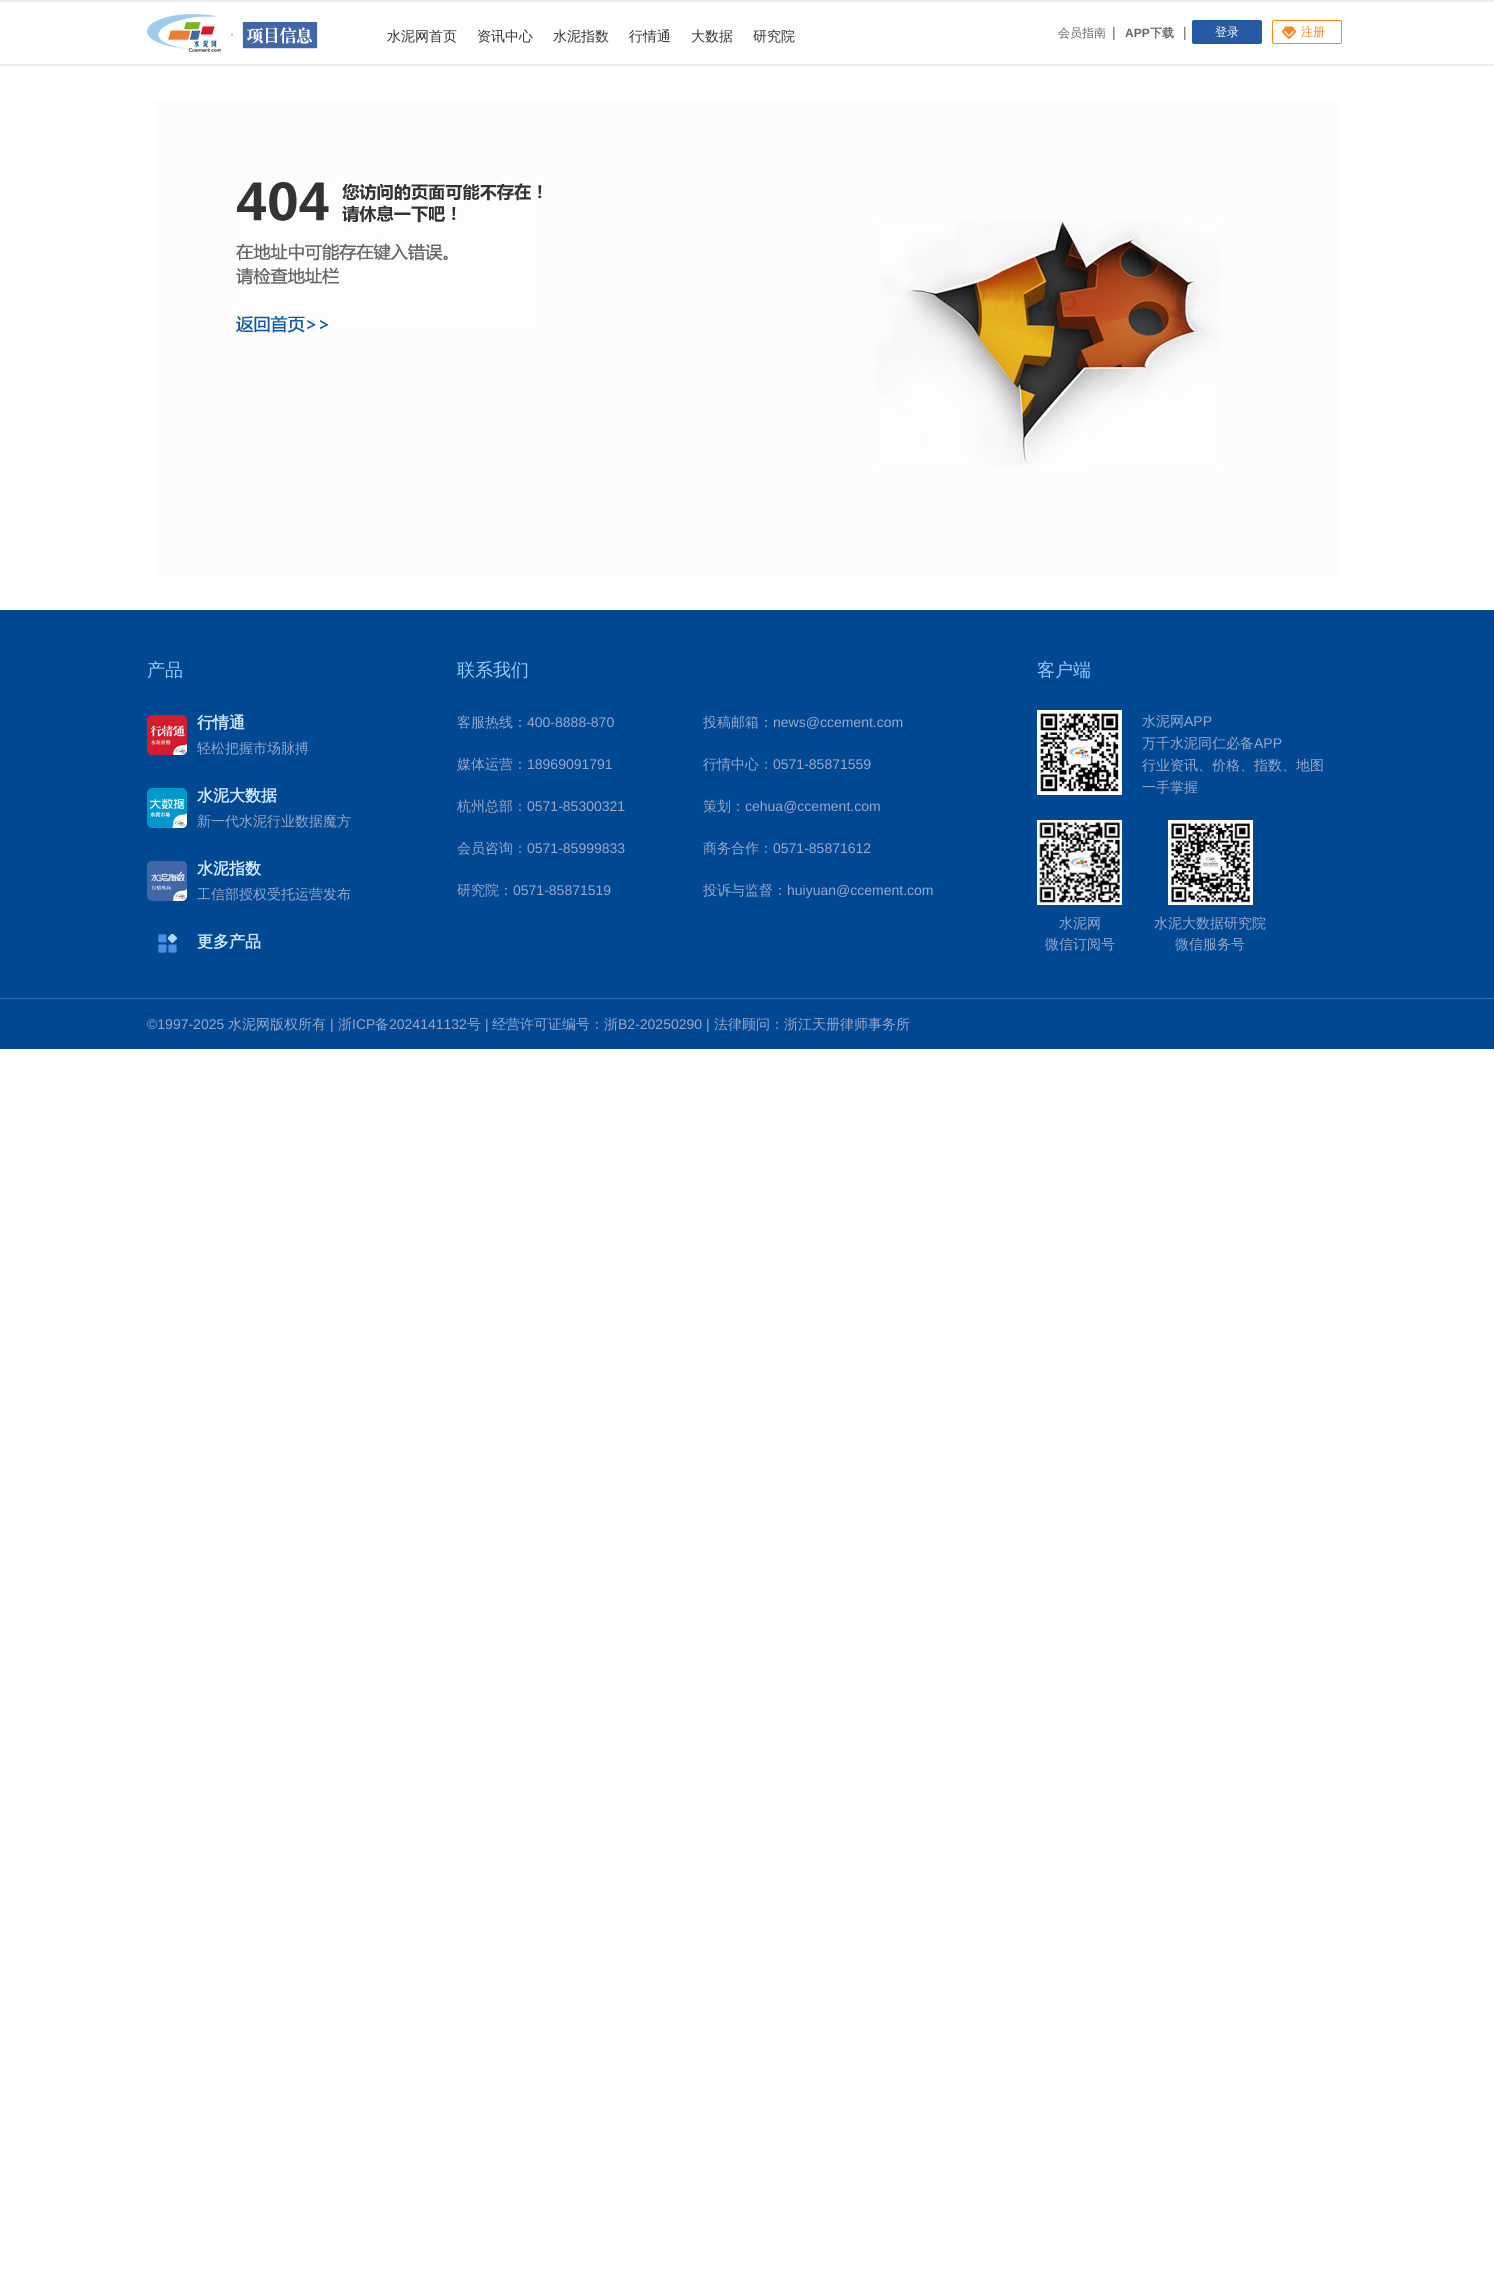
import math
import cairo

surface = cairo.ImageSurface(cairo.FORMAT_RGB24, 1494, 2295)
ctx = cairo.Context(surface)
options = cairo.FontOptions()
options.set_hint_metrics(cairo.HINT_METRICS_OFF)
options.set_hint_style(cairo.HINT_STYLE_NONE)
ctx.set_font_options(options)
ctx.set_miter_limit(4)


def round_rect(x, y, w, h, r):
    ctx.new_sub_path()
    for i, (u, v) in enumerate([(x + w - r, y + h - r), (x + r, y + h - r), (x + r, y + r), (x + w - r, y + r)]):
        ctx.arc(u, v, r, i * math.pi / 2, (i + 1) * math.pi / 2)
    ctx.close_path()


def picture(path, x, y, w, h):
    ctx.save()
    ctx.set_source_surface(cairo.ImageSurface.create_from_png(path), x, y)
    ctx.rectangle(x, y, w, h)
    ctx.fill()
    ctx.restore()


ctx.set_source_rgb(1, 1, 1)
ctx.paint()
ctx.set_source_rgb(0.929, 0.929, 0.929)
ctx.rectangle(0, 0, 1494, 2)
ctx.fill()
ctx.rectangle(0, 64, 1494, 2)
ctx.fill()
picture("img1.png", 147, 14, 171, 38)
ctx.select_font_face("WenQuanYi Zen Hei Medium")
ctx.set_font_size(14)
ctx.set_source_rgb(0.2, 0.2, 0.2)
ctx.move_to(387, 41)
ctx.show_text("水泥网首页")
ctx.move_to(477, 41)
ctx.show_text("资讯中心")
ctx.move_to(553, 41)
ctx.show_text("水泥指数")
ctx.move_to(629, 41)
ctx.show_text("行情通")
ctx.move_to(691, 41)
ctx.show_text("大数据")
ctx.move_to(753, 41)
ctx.show_text("研究院")
ctx.set_font_size(12)
ctx.set_source_rgb(0.396, 0.396, 0.396)
ctx.move_to(1058, 37)
ctx.show_text("会员指南")
ctx.select_font_face("Liberation Sans")
ctx.set_font_size(14)
ctx.move_to(1112, 37)
ctx.show_text("|")
ctx.select_font_face("Liberation Sans", cairo.FONT_SLANT_NORMAL, cairo.FONT_WEIGHT_BOLD)
ctx.set_font_size(12)
ctx.move_to(1125, 37)
ctx.show_text("APP")
ctx.select_font_face("WenQuanYi Zen Hei", cairo.FONT_SLANT_NORMAL, cairo.FONT_WEIGHT_BOLD)
ctx.move_to(1150, 37)
ctx.show_text("下载")
ctx.select_font_face("Liberation Sans")
ctx.set_font_size(14)
ctx.move_to(1183, 37)
ctx.show_text("|")
ctx.set_source_rgb(0.149, 0.353, 0.639)
round_rect(1192, 20, 70, 24, 2)
ctx.fill()
ctx.select_font_face("WenQuanYi Zen Hei Medium")
ctx.set_font_size(12)
ctx.set_source_rgb(1, 1, 1)
ctx.move_to(1215, 36)
ctx.show_text("登录")
round_rect(1272.5, 20.5, 69, 23, 1.5)
ctx.set_source_rgb(1, 0.522, 0.133)
ctx.set_line_width(1)
ctx.stroke()
picture("img2.png", 1282, 26, 14, 13)
ctx.move_to(1301, 36)
ctx.show_text("注册")
ctx.set_source_rgb(0.988, 0.988, 0.988)
ctx.rectangle(155, 101, 1185, 474)
ctx.fill()
picture("img3.png", 877, 221, 343, 245)
picture("img4.png", 235, 181, 307, 152)
ctx.set_source_rgb(0, 0.282, 0.569)
ctx.rectangle(0, 610, 1494, 439)
ctx.fill()
ctx.set_source_rgb(0.192, 0.42, 0.651)
ctx.rectangle(0, 998, 1494, 1)
ctx.fill()
ctx.set_font_size(18)
ctx.set_source_rgb(0.6, 0.8, 1)
ctx.move_to(147, 676)
ctx.show_text("产品")
picture("img5.png", 147, 715, 40, 40)
ctx.select_font_face("WenQuanYi Zen Hei", cairo.FONT_SLANT_NORMAL, cairo.FONT_WEIGHT_BOLD)
ctx.set_font_size(16)
ctx.set_source_rgb(0.804, 0.91, 1)
ctx.move_to(197, 728)
ctx.show_text("行情通")
ctx.select_font_face("WenQuanYi Zen Hei Medium")
ctx.set_font_size(14)
ctx.set_source_rgb(0.592, 0.663, 0.8)
ctx.move_to(197, 753)
ctx.show_text("轻松把握市场脉搏")
picture("img6.png", 147, 788, 40, 40)
ctx.select_font_face("WenQuanYi Zen Hei", cairo.FONT_SLANT_NORMAL, cairo.FONT_WEIGHT_BOLD)
ctx.set_font_size(16)
ctx.set_source_rgb(0.804, 0.91, 1)
ctx.move_to(197, 801)
ctx.show_text("水泥大数据")
ctx.select_font_face("WenQuanYi Zen Hei Medium")
ctx.set_font_size(14)
ctx.set_source_rgb(0.592, 0.663, 0.8)
ctx.move_to(197, 826)
ctx.show_text("新一代水泥行业数据魔方")
picture("img7.png", 147, 861, 40, 40)
ctx.select_font_face("WenQuanYi Zen Hei", cairo.FONT_SLANT_NORMAL, cairo.FONT_WEIGHT_BOLD)
ctx.set_font_size(16)
ctx.set_source_rgb(0.804, 0.91, 1)
ctx.move_to(197, 874)
ctx.show_text("水泥指数")
ctx.select_font_face("WenQuanYi Zen Hei Medium")
ctx.set_font_size(14)
ctx.set_source_rgb(0.592, 0.663, 0.8)
ctx.move_to(197, 899)
ctx.show_text("工信部授权受托运营发布")
picture("img8.png", 158, 934, 19, 19)
ctx.select_font_face("WenQuanYi Zen Hei", cairo.FONT_SLANT_NORMAL, cairo.FONT_WEIGHT_BOLD)
ctx.set_font_size(16)
ctx.set_source_rgb(0.804, 0.91, 1)
ctx.move_to(197, 947)
ctx.show_text("更多产品")
ctx.select_font_face("WenQuanYi Zen Hei Medium")
ctx.set_font_size(18)
ctx.set_source_rgb(0.6, 0.8, 1)
ctx.move_to(457, 676)
ctx.show_text("联系我们")
ctx.set_font_size(14)
ctx.set_source_rgb(0.592, 0.663, 0.8)
ctx.move_to(457, 727)
ctx.show_text("客服热线：")
ctx.select_font_face("Liberation Sans")
ctx.move_to(527, 727)
ctx.show_text("400-8888-870")
ctx.select_font_face("WenQuanYi Zen Hei Medium")
ctx.move_to(457, 769)
ctx.show_text("媒体运营：")
ctx.select_font_face("Liberation Sans")
ctx.move_to(527, 769)
ctx.show_text("18969091791")
ctx.select_font_face("WenQuanYi Zen Hei Medium")
ctx.move_to(457, 811)
ctx.show_text("杭州总部：")
ctx.select_font_face("Liberation Sans")
ctx.move_to(527, 811)
ctx.show_text("0571-85300321")
ctx.select_font_face("WenQuanYi Zen Hei Medium")
ctx.move_to(457, 853)
ctx.show_text("会员咨询：")
ctx.select_font_face("Liberation Sans")
ctx.move_to(527, 853)
ctx.show_text("0571-85999833")
ctx.select_font_face("WenQuanYi Zen Hei Medium")
ctx.move_to(457, 895)
ctx.show_text("研究院：")
ctx.select_font_face("Liberation Sans")
ctx.move_to(513, 895)
ctx.show_text("0571-85871519")
ctx.select_font_face("WenQuanYi Zen Hei Medium")
ctx.move_to(703, 727)
ctx.show_text("投稿邮箱：")
ctx.select_font_face("Liberation Sans")
ctx.move_to(773, 727)
ctx.show_text("news@ccement.com")
ctx.select_font_face("WenQuanYi Zen Hei Medium")
ctx.move_to(703, 769)
ctx.show_text("行情中心：")
ctx.select_font_face("Liberation Sans")
ctx.move_to(773, 769)
ctx.show_text("0571-85871559")
ctx.select_font_face("WenQuanYi Zen Hei Medium")
ctx.move_to(703, 811)
ctx.show_text("策划：")
ctx.select_font_face("Liberation Sans")
ctx.move_to(745, 811)
ctx.show_text("cehua@ccement.com")
ctx.select_font_face("WenQuanYi Zen Hei Medium")
ctx.move_to(703, 853)
ctx.show_text("商务合作：")
ctx.select_font_face("Liberation Sans")
ctx.move_to(773, 853)
ctx.show_text("0571-85871612")
ctx.select_font_face("WenQuanYi Zen Hei Medium")
ctx.move_to(703, 895)
ctx.show_text("投诉与监督：")
ctx.select_font_face("Liberation Sans")
ctx.move_to(787, 895)
ctx.show_text("huiyuan@ccement.com")
ctx.select_font_face("WenQuanYi Zen Hei Medium")
ctx.set_font_size(18)
ctx.set_source_rgb(0.6, 0.8, 1)
ctx.move_to(1037, 676)
ctx.show_text("客户端")
picture("img9.png", 1037, 710, 85, 85)
ctx.set_font_size(14)
ctx.set_source_rgb(0.592, 0.663, 0.8)
ctx.move_to(1142, 726)
ctx.show_text("水泥网")
ctx.select_font_face("Liberation Sans")
ctx.move_to(1184, 726)
ctx.show_text("APP")
ctx.select_font_face("WenQuanYi Zen Hei Medium")
ctx.move_to(1142, 748)
ctx.show_text("万千水泥同仁必备")
ctx.select_font_face("Liberation Sans")
ctx.move_to(1254, 748)
ctx.show_text("APP")
ctx.select_font_face("WenQuanYi Zen Hei Medium")
ctx.move_to(1142, 770)
ctx.show_text("行业资讯、价格、指数、地图")
ctx.move_to(1142, 792)
ctx.show_text("一手掌握")
picture("img10.png", 1037, 820, 85, 85)
ctx.move_to(1059, 928)
ctx.show_text("水泥网")
ctx.move_to(1045, 949)
ctx.show_text("微信订阅号")
picture("img11.png", 1168, 820, 85, 85)
ctx.move_to(1154, 928)
ctx.show_text("水泥大数据研究院")
ctx.move_to(1175, 949)
ctx.show_text("微信服务号")
ctx.select_font_face("Liberation Sans")
ctx.move_to(147, 1029)
ctx.show_text("©1997-2025")
ctx.select_font_face("WenQuanYi Zen Hei Medium")
ctx.move_to(228, 1029)
ctx.show_text("水泥网版权所有")
ctx.select_font_face("Liberation Sans")
ctx.move_to(330, 1029)
ctx.show_text("|")
ctx.select_font_face("WenQuanYi Zen Hei Medium")
ctx.move_to(338, 1029)
ctx.show_text("浙")
ctx.select_font_face("Liberation Sans")
ctx.move_to(352, 1029)
ctx.show_text("ICP")
ctx.select_font_face("WenQuanYi Zen Hei Medium")
ctx.move_to(375, 1029)
ctx.show_text("备")
ctx.select_font_face("Liberation Sans")
ctx.move_to(389, 1029)
ctx.show_text("2024141132")
ctx.select_font_face("WenQuanYi Zen Hei Medium")
ctx.move_to(467, 1029)
ctx.show_text("号")
ctx.select_font_face("Liberation Sans")
ctx.move_to(485, 1029)
ctx.show_text("|")
ctx.select_font_face("WenQuanYi Zen Hei Medium")
ctx.move_to(492, 1029)
ctx.show_text("经营许可证编号：浙")
ctx.select_font_face("Liberation Sans")
ctx.move_to(618, 1029)
ctx.show_text("B2-20250290 |")
ctx.select_font_face("WenQuanYi Zen Hei Medium")
ctx.move_to(714, 1029)
ctx.show_text("法律顾问：浙江天册律师事务所")
surface.write_to_png("page.png")
